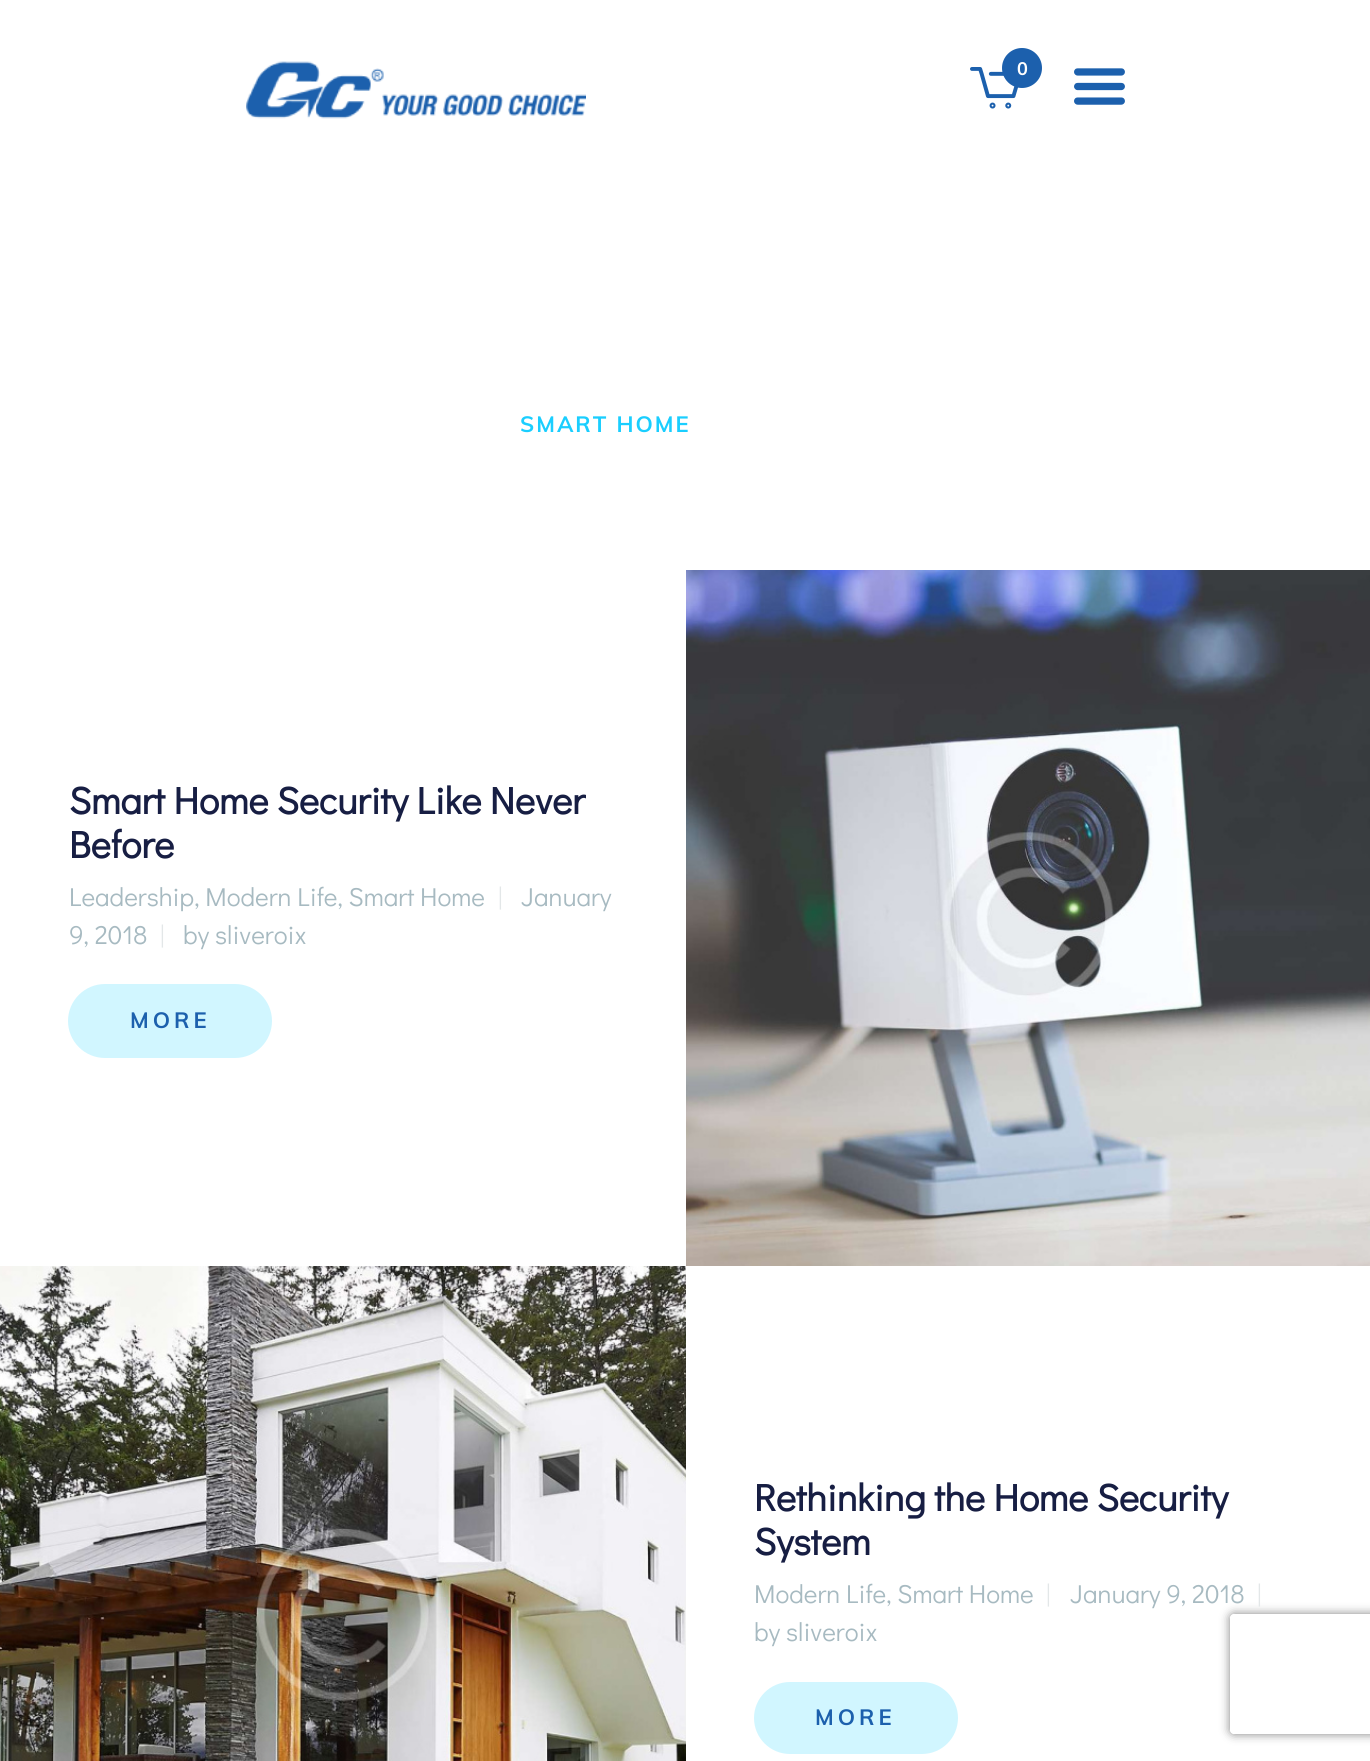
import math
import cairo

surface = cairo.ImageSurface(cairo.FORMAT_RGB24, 1370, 1761)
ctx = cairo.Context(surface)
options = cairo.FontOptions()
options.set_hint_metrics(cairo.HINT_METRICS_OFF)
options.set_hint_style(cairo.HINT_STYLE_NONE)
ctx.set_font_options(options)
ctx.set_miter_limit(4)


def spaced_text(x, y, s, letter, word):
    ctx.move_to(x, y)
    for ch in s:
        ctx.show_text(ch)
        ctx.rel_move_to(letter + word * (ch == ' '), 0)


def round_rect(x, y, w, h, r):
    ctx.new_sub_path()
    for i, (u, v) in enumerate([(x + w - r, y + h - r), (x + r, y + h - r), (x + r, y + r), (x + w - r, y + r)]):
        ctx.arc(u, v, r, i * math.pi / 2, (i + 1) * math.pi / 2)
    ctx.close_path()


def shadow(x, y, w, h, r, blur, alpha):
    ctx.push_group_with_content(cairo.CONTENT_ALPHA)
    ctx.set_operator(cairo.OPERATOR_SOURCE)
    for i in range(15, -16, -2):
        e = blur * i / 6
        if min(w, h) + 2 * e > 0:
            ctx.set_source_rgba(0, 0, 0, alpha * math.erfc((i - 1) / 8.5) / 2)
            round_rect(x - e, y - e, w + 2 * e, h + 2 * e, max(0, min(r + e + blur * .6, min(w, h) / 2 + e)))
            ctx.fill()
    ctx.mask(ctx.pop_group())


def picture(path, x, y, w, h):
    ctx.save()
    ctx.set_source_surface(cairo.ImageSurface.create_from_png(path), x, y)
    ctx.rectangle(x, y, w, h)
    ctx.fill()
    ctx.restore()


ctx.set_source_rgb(1, 1, 1)
ctx.paint()
picture("img1.png", 246, 61, 340, 58)
picture("img2.png", 970, 67, 49, 42)
ctx.set_source_rgb(0.11, 0.376, 0.678)
ctx.arc(1022, 68, 20, 0, 2 * math.pi)
ctx.fill()
ctx.select_font_face("Muli", cairo.FONT_SLANT_NORMAL, cairo.FONT_WEIGHT_BOLD)
ctx.set_font_size(18)
ctx.set_source_rgb(1, 1, 1)
ctx.move_to(1017, 75)
ctx.show_text("0")
picture("img3.png", 1074, 68, 51, 37)
ctx.set_font_size(22)
ctx.set_source_rgb(0.102, 0.808, 1)
spaced_text(520, 432, "SMART HOME", 2, 0)
ctx.select_font_face("Didact Gothic", cairo.FONT_SLANT_NORMAL, cairo.FONT_WEIGHT_BOLD)
ctx.set_font_size(38)
ctx.set_source_rgb(0.09, 0.118, 0.263)
ctx.move_to(69, 814)
ctx.show_text("Smart Home Security Like Never")
ctx.move_to(69, 858)
ctx.show_text("Before")
ctx.select_font_face("Didact Gothic")
ctx.set_font_size(26)
ctx.set_source_rgb(0.655, 0.729, 0.757)
ctx.move_to(69, 906)
ctx.show_text("Leadership, Modern Life, Smart Home")
ctx.set_source_rgb(0.89, 0.906, 0.91)
ctx.move_to(498, 906)
ctx.show_text("|")
ctx.set_source_rgb(0.655, 0.729, 0.757)
ctx.move_to(521, 906)
ctx.show_text("January")
ctx.move_to(69, 944)
ctx.show_text("9, 2018")
ctx.set_source_rgb(0.89, 0.906, 0.91)
ctx.move_to(160, 944)
ctx.show_text("|")
ctx.set_source_rgb(0.655, 0.729, 0.757)
ctx.move_to(183, 944)
ctx.show_text("by sliveroix")
ctx.set_source_rgb(0.82, 0.961, 1)
round_rect(68, 984, 204, 74, 37)
ctx.fill()
ctx.select_font_face("Muli", cairo.FONT_SLANT_NORMAL, cairo.FONT_WEIGHT_BOLD)
ctx.set_font_size(22)
ctx.set_source_rgb(0.11, 0.376, 0.678)
spaced_text(130, 1028, "MORE", 4, 0)
picture("img4.png", 686, 570, 684, 696)
picture("img5.png", 0, 1266, 686, 495)
ctx.select_font_face("Didact Gothic", cairo.FONT_SLANT_NORMAL, cairo.FONT_WEIGHT_BOLD)
ctx.set_font_size(38)
ctx.set_source_rgb(0.09, 0.118, 0.263)
ctx.move_to(754, 1511)
ctx.show_text("Rethinking the Home Security")
ctx.move_to(754, 1555)
ctx.show_text("System")
ctx.select_font_face("Didact Gothic")
ctx.set_font_size(26)
ctx.set_source_rgb(0.655, 0.729, 0.757)
ctx.move_to(754, 1603)
ctx.show_text("Modern Life, Smart Home")
ctx.set_source_rgb(0.89, 0.906, 0.91)
ctx.move_to(1046, 1603)
ctx.show_text("|")
ctx.save()
ctx.set_fill_rule(cairo.FILL_RULE_EVEN_ODD)
ctx.new_path()
ctx.move_to(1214, 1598)
ctx.line_to(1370, 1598)
ctx.line_to(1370, 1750)
ctx.line_to(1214, 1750)
ctx.close_path()
ctx.move_to(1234, 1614)
ctx.line_to(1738, 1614)
ctx.curve_to(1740, 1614, 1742, 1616, 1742, 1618)
ctx.line_to(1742, 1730)
ctx.curve_to(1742, 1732, 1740, 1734, 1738, 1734)
ctx.line_to(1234, 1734)
ctx.curve_to(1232, 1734, 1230, 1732, 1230, 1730)
ctx.line_to(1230, 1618)
ctx.curve_to(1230, 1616, 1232, 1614, 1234, 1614)
ctx.close_path()
ctx.clip()
ctx.set_source_rgb(0.502, 0.502, 0.502)
shadow(1230, 1614, 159, 120, 4, 5, 1)
ctx.restore()
ctx.set_source_rgb(0.655, 0.729, 0.757)
ctx.move_to(1070, 1603)
ctx.show_text("January 9, 2018")
ctx.set_source_rgb(0.89, 0.906, 0.91)
ctx.move_to(1257, 1603)
ctx.show_text("|")
ctx.set_source_rgb(0.655, 0.729, 0.757)
ctx.move_to(754, 1641)
ctx.show_text("by sliveroix")
ctx.set_source_rgb(0.82, 0.961, 1)
round_rect(754, 1682, 204, 72, 36)
ctx.fill()
ctx.select_font_face("Muli", cairo.FONT_SLANT_NORMAL, cairo.FONT_WEIGHT_BOLD)
ctx.set_font_size(22)
ctx.set_source_rgb(0.11, 0.376, 0.678)
spaced_text(815, 1725, "MORE", 4, 0)
surface.write_to_png("page.png")
